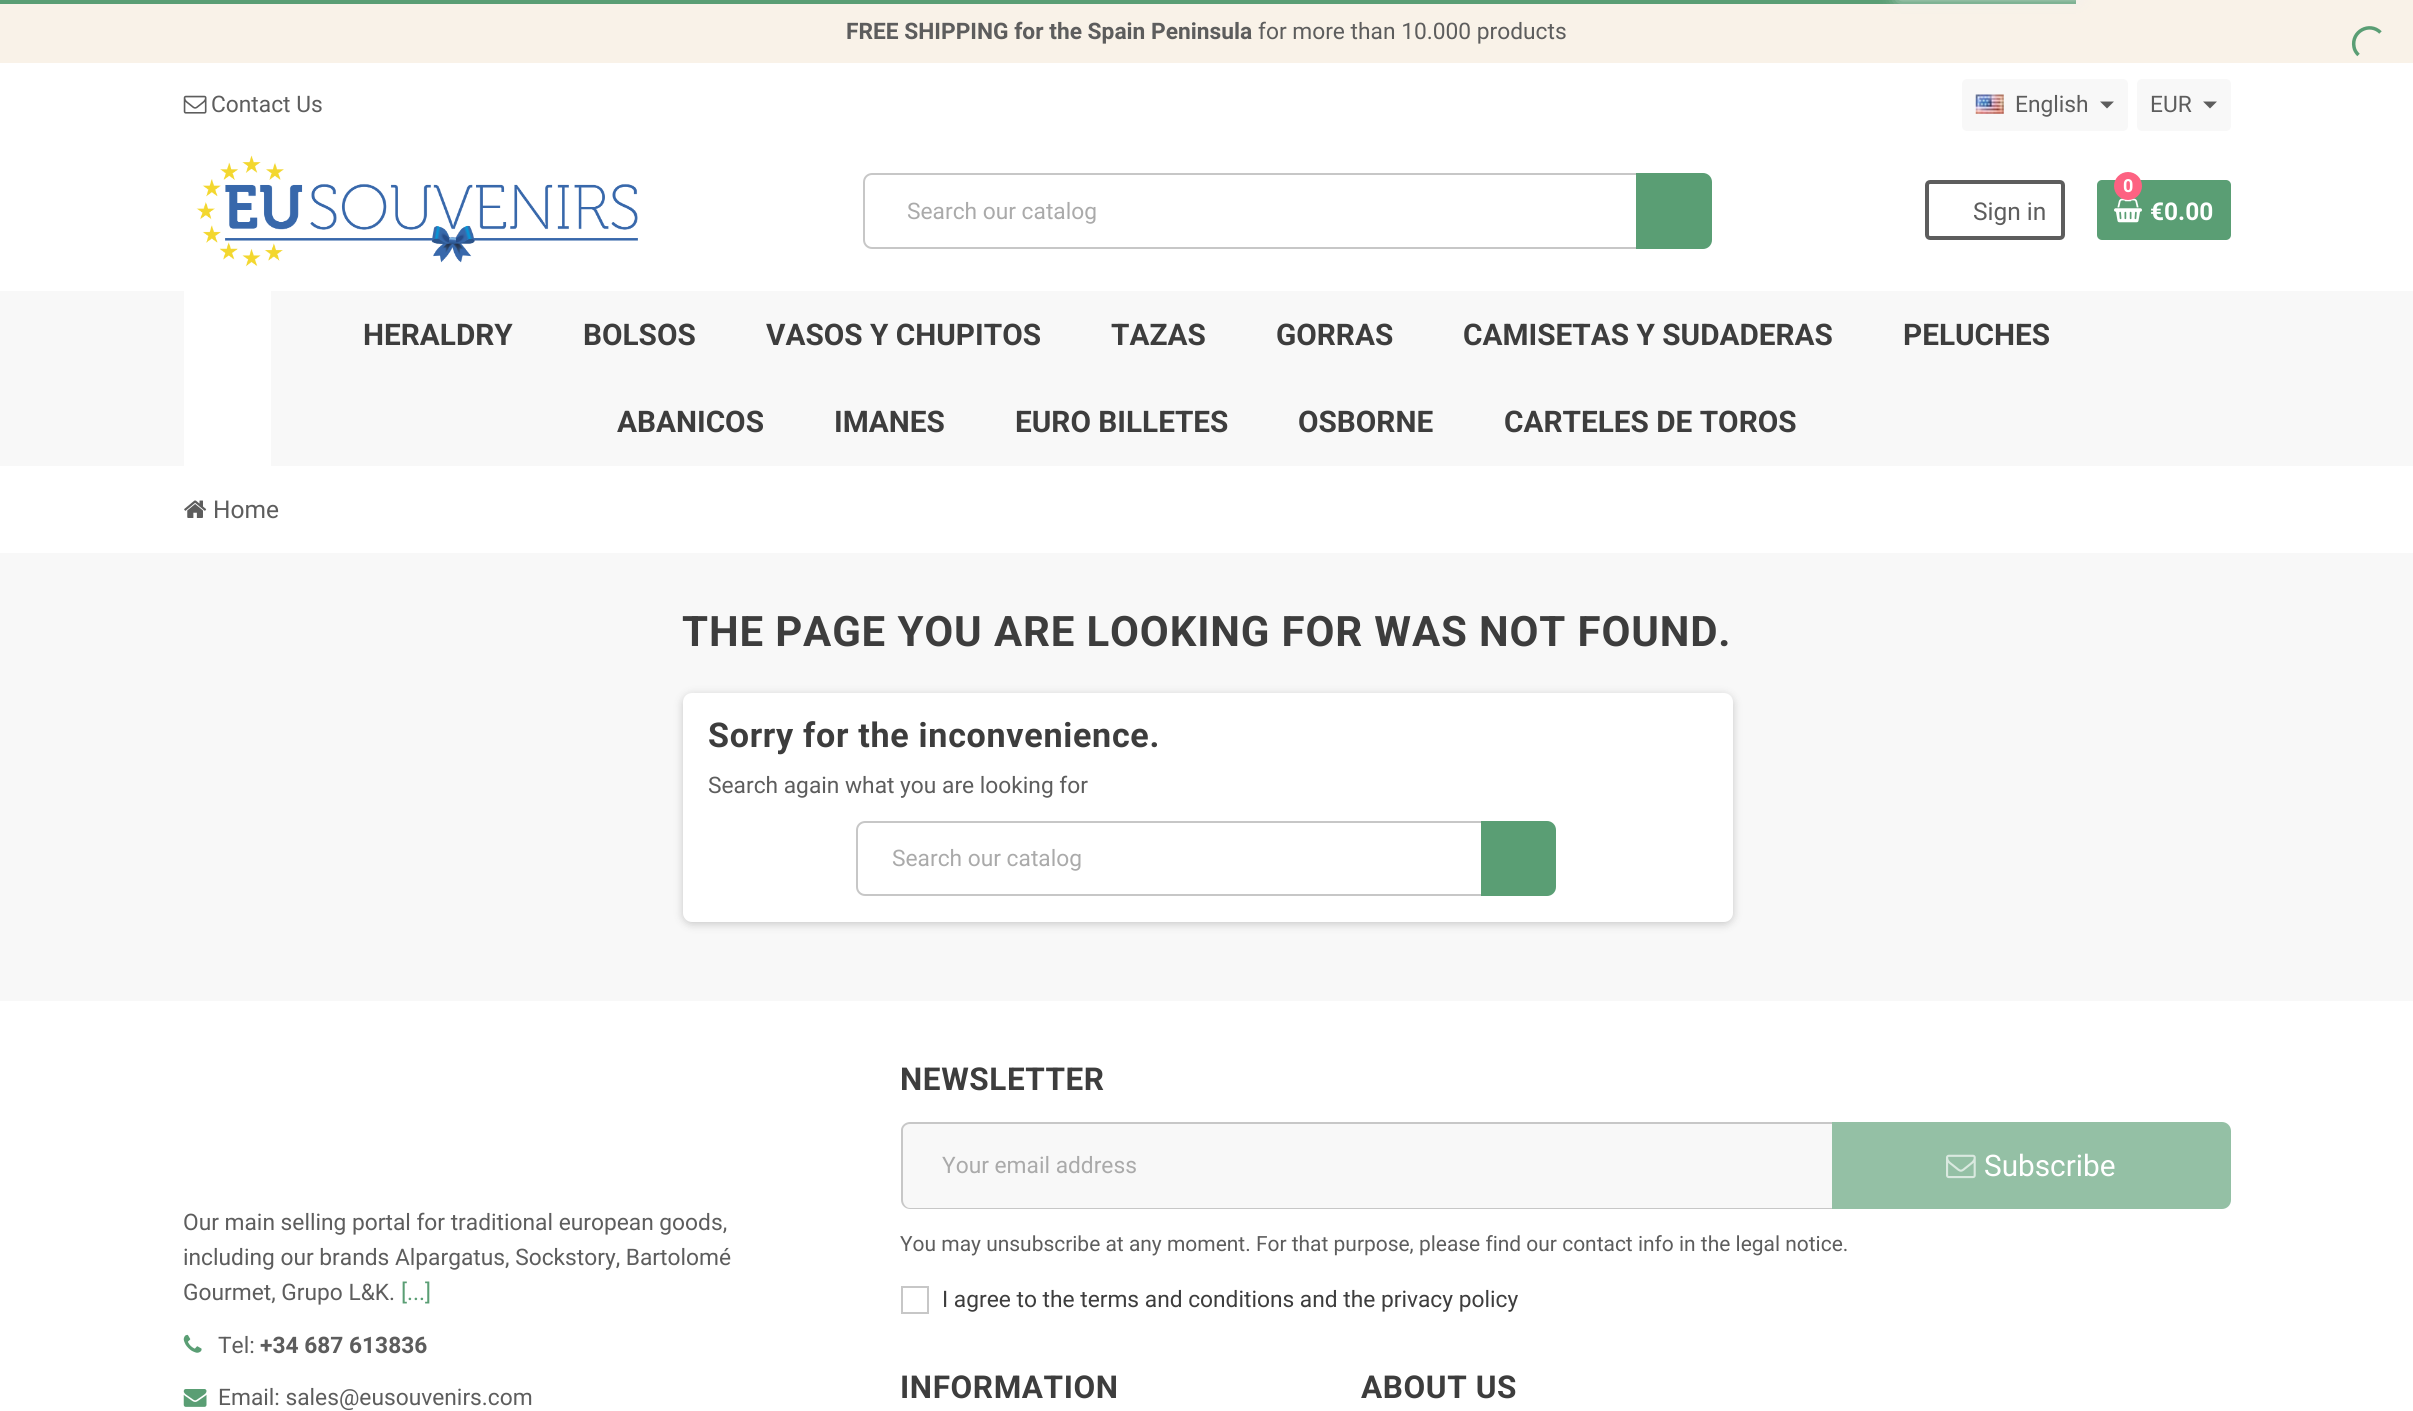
import math
import cairo

surface = cairo.ImageSurface(cairo.FORMAT_RGB24, 2413, 1411)
ctx = cairo.Context(surface)
options = cairo.FontOptions()
options.set_hint_metrics(cairo.HINT_METRICS_OFF)
options.set_hint_style(cairo.HINT_STYLE_NONE)
ctx.set_font_options(options)
ctx.set_miter_limit(4)


def spaced_text(x, y, s, letter, word):
    ctx.move_to(x, y)
    for ch in s:
        ctx.show_text(ch)
        ctx.rel_move_to(letter + word * (ch == ' '), 0)


def round_rect(x, y, w, h, r):
    ctx.new_sub_path()
    for i, (u, v) in enumerate([(x + w - r, y + h - r), (x + r, y + h - r), (x + r, y + r), (x + w - r, y + r)]):
        ctx.arc(u, v, r, i * math.pi / 2, (i + 1) * math.pi / 2)
    ctx.close_path()


def shadow(x, y, w, h, r, blur, alpha):
    ctx.push_group_with_content(cairo.CONTENT_ALPHA)
    ctx.set_operator(cairo.OPERATOR_SOURCE)
    for i in range(15, -16, -2):
        e = blur * i / 6
        if min(w, h) + 2 * e > 0:
            ctx.set_source_rgba(0, 0, 0, alpha * math.erfc((i - 1) / 8.5) / 2)
            round_rect(x - e, y - e, w + 2 * e, h + 2 * e, max(0, min(r + e + blur * .6, min(w, h) / 2 + e)))
            ctx.fill()
    ctx.mask(ctx.pop_group())


def picture(path, x, y, w, h):
    ctx.save()
    ctx.set_source_surface(cairo.ImageSurface.create_from_png(path), x, y)
    ctx.rectangle(x, y, w, h)
    ctx.fill()
    ctx.restore()


ctx.set_source_rgb(1, 1, 1)
ctx.paint()
ctx.set_source_rgb(0.976, 0.949, 0.91)
ctx.rectangle(0, 0, 2413, 63)
ctx.fill()
ctx.set_source_rgb(0.353, 0.62, 0.455)
ctx.rectangle(0, 0, 2076, 4)
ctx.fill()
ctx.set_source_rgb(0.933, 0.933, 0.933)
shadow(1901, -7, 175, 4, 0, 9, 1)
ctx.new_path()
ctx.move_to(2358.5, 55)
ctx.curve_to(2356, 52.5, 2354.5, 50, 2354, 47)
ctx.curve_to(2351, 31.5, 2369.5, 21.5, 2380.5, 32.5)
ctx.set_source_rgb(0.353, 0.62, 0.455)
ctx.set_line_width(3.5)
ctx.stroke()
ctx.select_font_face("Roboto", cairo.FONT_SLANT_NORMAL, cairo.FONT_WEIGHT_BOLD)
ctx.set_font_size(22.75)
ctx.set_source_rgb(0.365, 0.365, 0.365)
ctx.move_to(846, 39)
ctx.show_text("FREE SHIPPING for the Spain Peninsula")
ctx.select_font_face("Roboto")
ctx.move_to(1258, 39)
ctx.show_text("for more than 10.000 products")
picture("img1.png", 183, 95, 24, 19)
ctx.move_to(211, 112)
ctx.show_text("Contact Us")
ctx.set_source_rgb(0.969, 0.969, 0.969)
round_rect(1962, 79, 166, 52, 5)
ctx.fill()
picture("img2.png", 1975, 94, 29, 20)
ctx.set_source_rgb(0.365, 0.365, 0.365)
ctx.move_to(2015, 112)
ctx.show_text("English")
ctx.new_path()
ctx.move_to(2100, 101.5)
ctx.line_to(2114, 101.5)
ctx.line_to(2107, 108.5)
ctx.close_path()
ctx.fill()
ctx.set_source_rgb(0.969, 0.969, 0.969)
round_rect(2137, 79, 94, 52, 5)
ctx.fill()
ctx.set_source_rgb(0.365, 0.365, 0.365)
ctx.move_to(2150, 112)
ctx.show_text("EUR")
ctx.new_path()
ctx.move_to(2203, 101.5)
ctx.line_to(2217, 101.5)
ctx.line_to(2210, 108.5)
ctx.close_path()
ctx.fill()
picture("img3.png", 196, 155, 442, 112)
round_rect(864, 174, 845, 74, 8)
ctx.set_source_rgb(0.78, 0.78, 0.78)
ctx.set_line_width(2)
ctx.stroke()
ctx.set_source_rgb(0.667, 0.667, 0.667)
ctx.move_to(907, 219)
ctx.show_text("Search our catalog")
ctx.set_source_rgb(0.353, 0.62, 0.455)
ctx.new_path()
ctx.move_to(1636, 173)
ctx.line_to(1703, 173)
ctx.curve_to(1708, 173, 1712, 177, 1712, 182)
ctx.line_to(1712, 240)
ctx.curve_to(1712, 245, 1708, 249, 1703, 249)
ctx.line_to(1636, 249)
ctx.close_path()
ctx.fill()
round_rect(1927, 182, 136, 56, 3)
ctx.set_source_rgb(0.365, 0.365, 0.365)
ctx.set_line_width(4)
ctx.stroke()
ctx.set_font_size(24.5)
ctx.move_to(1973, 220)
ctx.show_text("Sign in")
ctx.set_source_rgb(0.353, 0.62, 0.455)
round_rect(2097, 180, 134, 60, 5)
ctx.fill()
picture("img4.png", 2114, 198, 28, 25)
ctx.set_source_rgb(0.992, 0.384, 0.51)
ctx.arc(2128, 186, 14, 0, 2 * math.pi)
ctx.fill()
ctx.select_font_face("Roboto", cairo.FONT_SLANT_NORMAL, cairo.FONT_WEIGHT_BOLD)
ctx.set_font_size(18)
ctx.set_source_rgb(1, 1, 1)
ctx.move_to(2123, 192)
ctx.show_text("0")
ctx.set_font_size(24.5)
ctx.move_to(2150, 220)
ctx.show_text("€0.00")
ctx.set_source_rgb(0.969, 0.969, 0.969)
ctx.rectangle(0, 291, 2413, 175)
ctx.fill()
ctx.set_source_rgb(1, 1, 1)
ctx.rectangle(184, 291, 87, 175)
ctx.fill()
ctx.select_font_face("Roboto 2", cairo.FONT_SLANT_NORMAL, cairo.FONT_WEIGHT_BOLD)
ctx.set_font_size(29.75)
ctx.set_source_rgb(0.239, 0.239, 0.239)
ctx.move_to(363, 345)
ctx.show_text("HERALDRY")
ctx.move_to(583, 345)
ctx.show_text("BOLSOS")
ctx.move_to(766, 345)
ctx.show_text("VASOS Y CHUPITOS")
ctx.move_to(1111, 345)
ctx.show_text("TAZAS")
ctx.move_to(1276, 345)
ctx.show_text("GORRAS")
ctx.move_to(1463, 345)
ctx.show_text("CAMISETAS Y SUDADERAS")
ctx.move_to(1903, 345)
ctx.show_text("PELUCHES")
ctx.move_to(617, 432)
ctx.show_text("ABANICOS")
ctx.move_to(834, 432)
ctx.show_text("IMANES")
ctx.move_to(1015, 432)
ctx.show_text("EURO BILLETES")
ctx.move_to(1298, 432)
ctx.show_text("OSBORNE")
ctx.move_to(1504, 432)
ctx.show_text("CARTELES DE TOROS")
ctx.set_source_rgb(0.969, 0.969, 0.969)
ctx.rectangle(0, 553, 2413, 448)
ctx.fill()
picture("img5.png", 184, 500, 23, 18)
ctx.select_font_face("Roboto")
ctx.set_font_size(24.5)
ctx.set_source_rgb(0.365, 0.365, 0.365)
ctx.move_to(213, 518)
ctx.show_text("Home")
ctx.select_font_face("Roboto 2", cairo.FONT_SLANT_NORMAL, cairo.FONT_WEIGHT_BOLD)
ctx.set_font_size(42)
ctx.set_source_rgb(0.239, 0.239, 0.239)
spaced_text(682, 646, "THE PAGE YOU ARE LOOKING FOR WAS NOT FOUND.", 0.85, 0)
ctx.set_source_rgb(0, 0, 0)
shadow(683, 695, 1050, 229, 9, 4.5, 0.2)
ctx.set_source_rgb(1, 1, 1)
round_rect(683, 693, 1050, 229, 9)
ctx.fill()
ctx.set_font_size(34.1)
ctx.set_source_rgb(0.239, 0.239, 0.239)
spaced_text(708, 747, "Sorry for the inconvenience.", 0.7, 0)
ctx.select_font_face("Roboto")
ctx.set_font_size(22.75)
ctx.set_source_rgb(0.365, 0.365, 0.365)
ctx.move_to(708, 793)
ctx.show_text("Search again what you are looking for")
round_rect(857, 822, 696, 73, 8)
ctx.set_source_rgb(0.78, 0.78, 0.78)
ctx.set_line_width(2)
ctx.stroke()
ctx.set_source_rgb(0.667, 0.667, 0.667)
ctx.move_to(892, 866)
ctx.show_text("Search our catalog")
ctx.set_source_rgb(0.353, 0.62, 0.455)
ctx.new_path()
ctx.move_to(1481, 821)
ctx.line_to(1547, 821)
ctx.curve_to(1552, 821, 1556, 825, 1556, 830)
ctx.line_to(1556, 887)
ctx.curve_to(1556, 892, 1552, 896, 1547, 896)
ctx.line_to(1481, 896)
ctx.close_path()
ctx.fill()
ctx.set_source_rgb(0.365, 0.365, 0.365)
ctx.move_to(183, 1230)
ctx.show_text("Our main selling portal for traditional european goods,")
ctx.move_to(183, 1265)
ctx.show_text("including our brands Alpargatus, Sockstory, Bartolomé")
ctx.move_to(183, 1300)
ctx.show_text("Gourmet, Grupo L&K.")
ctx.set_source_rgb(0.353, 0.62, 0.455)
ctx.move_to(401, 1300)
ctx.show_text("[...]")
picture("img6.png", 183, 1334, 19, 19)
ctx.set_source_rgb(0.365, 0.365, 0.365)
ctx.move_to(218, 1353)
ctx.show_text("Tel:")
ctx.select_font_face("Roboto", cairo.FONT_SLANT_NORMAL, cairo.FONT_WEIGHT_BOLD)
ctx.move_to(260, 1353)
ctx.show_text("+34 687 613836")
picture("img7.png", 183, 1389, 24, 18)
ctx.select_font_face("Roboto")
ctx.move_to(218, 1405)
ctx.show_text("Email: sales@eusouvenirs.com")
ctx.select_font_face("Roboto 2", cairo.FONT_SLANT_NORMAL, cairo.FONT_WEIGHT_BOLD)
ctx.set_font_size(31.5)
ctx.set_source_rgb(0.239, 0.239, 0.239)
spaced_text(900, 1090, "NEWSLETTER", 0.6, 0)
ctx.set_source_rgb(0.969, 0.969, 0.969)
ctx.new_path()
ctx.move_to(910, 1124)
ctx.line_to(1832, 1124)
ctx.line_to(1832, 1208)
ctx.line_to(910, 1208)
ctx.curve_to(906, 1208, 903, 1205, 903, 1201)
ctx.line_to(903, 1131)
ctx.curve_to(903, 1127, 906, 1124, 910, 1124)
ctx.close_path()
ctx.fill()
ctx.set_source_rgb(0.78, 0.78, 0.78)
ctx.set_fill_rule(cairo.FILL_RULE_EVEN_ODD)
ctx.new_path()
ctx.move_to(910, 1122)
ctx.line_to(1832, 1122)
ctx.line_to(1832, 1209)
ctx.line_to(910, 1209)
ctx.curve_to(905, 1209, 901, 1205, 901, 1200)
ctx.line_to(901, 1130)
ctx.curve_to(901, 1126, 905, 1122, 910, 1122)
ctx.close_path()
ctx.move_to(910, 1124)
ctx.line_to(1832, 1124)
ctx.line_to(1832, 1208)
ctx.line_to(910, 1208)
ctx.curve_to(906, 1208, 903, 1204, 903, 1200)
ctx.line_to(903, 1130)
ctx.curve_to(903, 1127, 906, 1124, 910, 1124)
ctx.close_path()
ctx.fill()
ctx.select_font_face("Roboto")
ctx.set_font_size(22.75)
ctx.set_source_rgb(0.667, 0.667, 0.667)
ctx.move_to(942, 1173)
ctx.show_text("Your email address")
ctx.set_source_rgb(0.58, 0.753, 0.647)
ctx.new_path()
ctx.move_to(1832, 1122)
ctx.line_to(2222, 1122)
ctx.curve_to(2227, 1122, 2231, 1126, 2231, 1131)
ctx.line_to(2231, 1200)
ctx.curve_to(2231, 1205, 2227, 1209, 2222, 1209)
ctx.line_to(1832, 1209)
ctx.close_path()
ctx.fill()
picture("img8.png", 1946, 1154, 30, 25)
ctx.set_font_size(29.75)
ctx.set_source_rgb(1, 1, 1)
ctx.move_to(1984, 1176)
ctx.show_text("Subscribe")
ctx.set_font_size(20.95)
ctx.set_source_rgb(0.365, 0.365, 0.365)
ctx.move_to(900, 1251)
ctx.show_text("You may unsubscribe at any moment. For that purpose, please find our contact info in the legal notice.")
ctx.rectangle(902, 1287, 26, 26)
ctx.set_source_rgb(0.78, 0.78, 0.78)
ctx.stroke()
ctx.set_font_size(22.75)
ctx.set_source_rgb(0.239, 0.239, 0.239)
ctx.move_to(942, 1307)
ctx.show_text("I agree to the terms and conditions and the privacy policy")
ctx.select_font_face("Roboto 2", cairo.FONT_SLANT_NORMAL, cairo.FONT_WEIGHT_BOLD)
ctx.set_font_size(31.5)
spaced_text(900, 1398, "INFORMATION", 0.6, 0)
spaced_text(1361, 1398, "ABOUT US", 0.6, 0)
surface.write_to_png("page.png")
